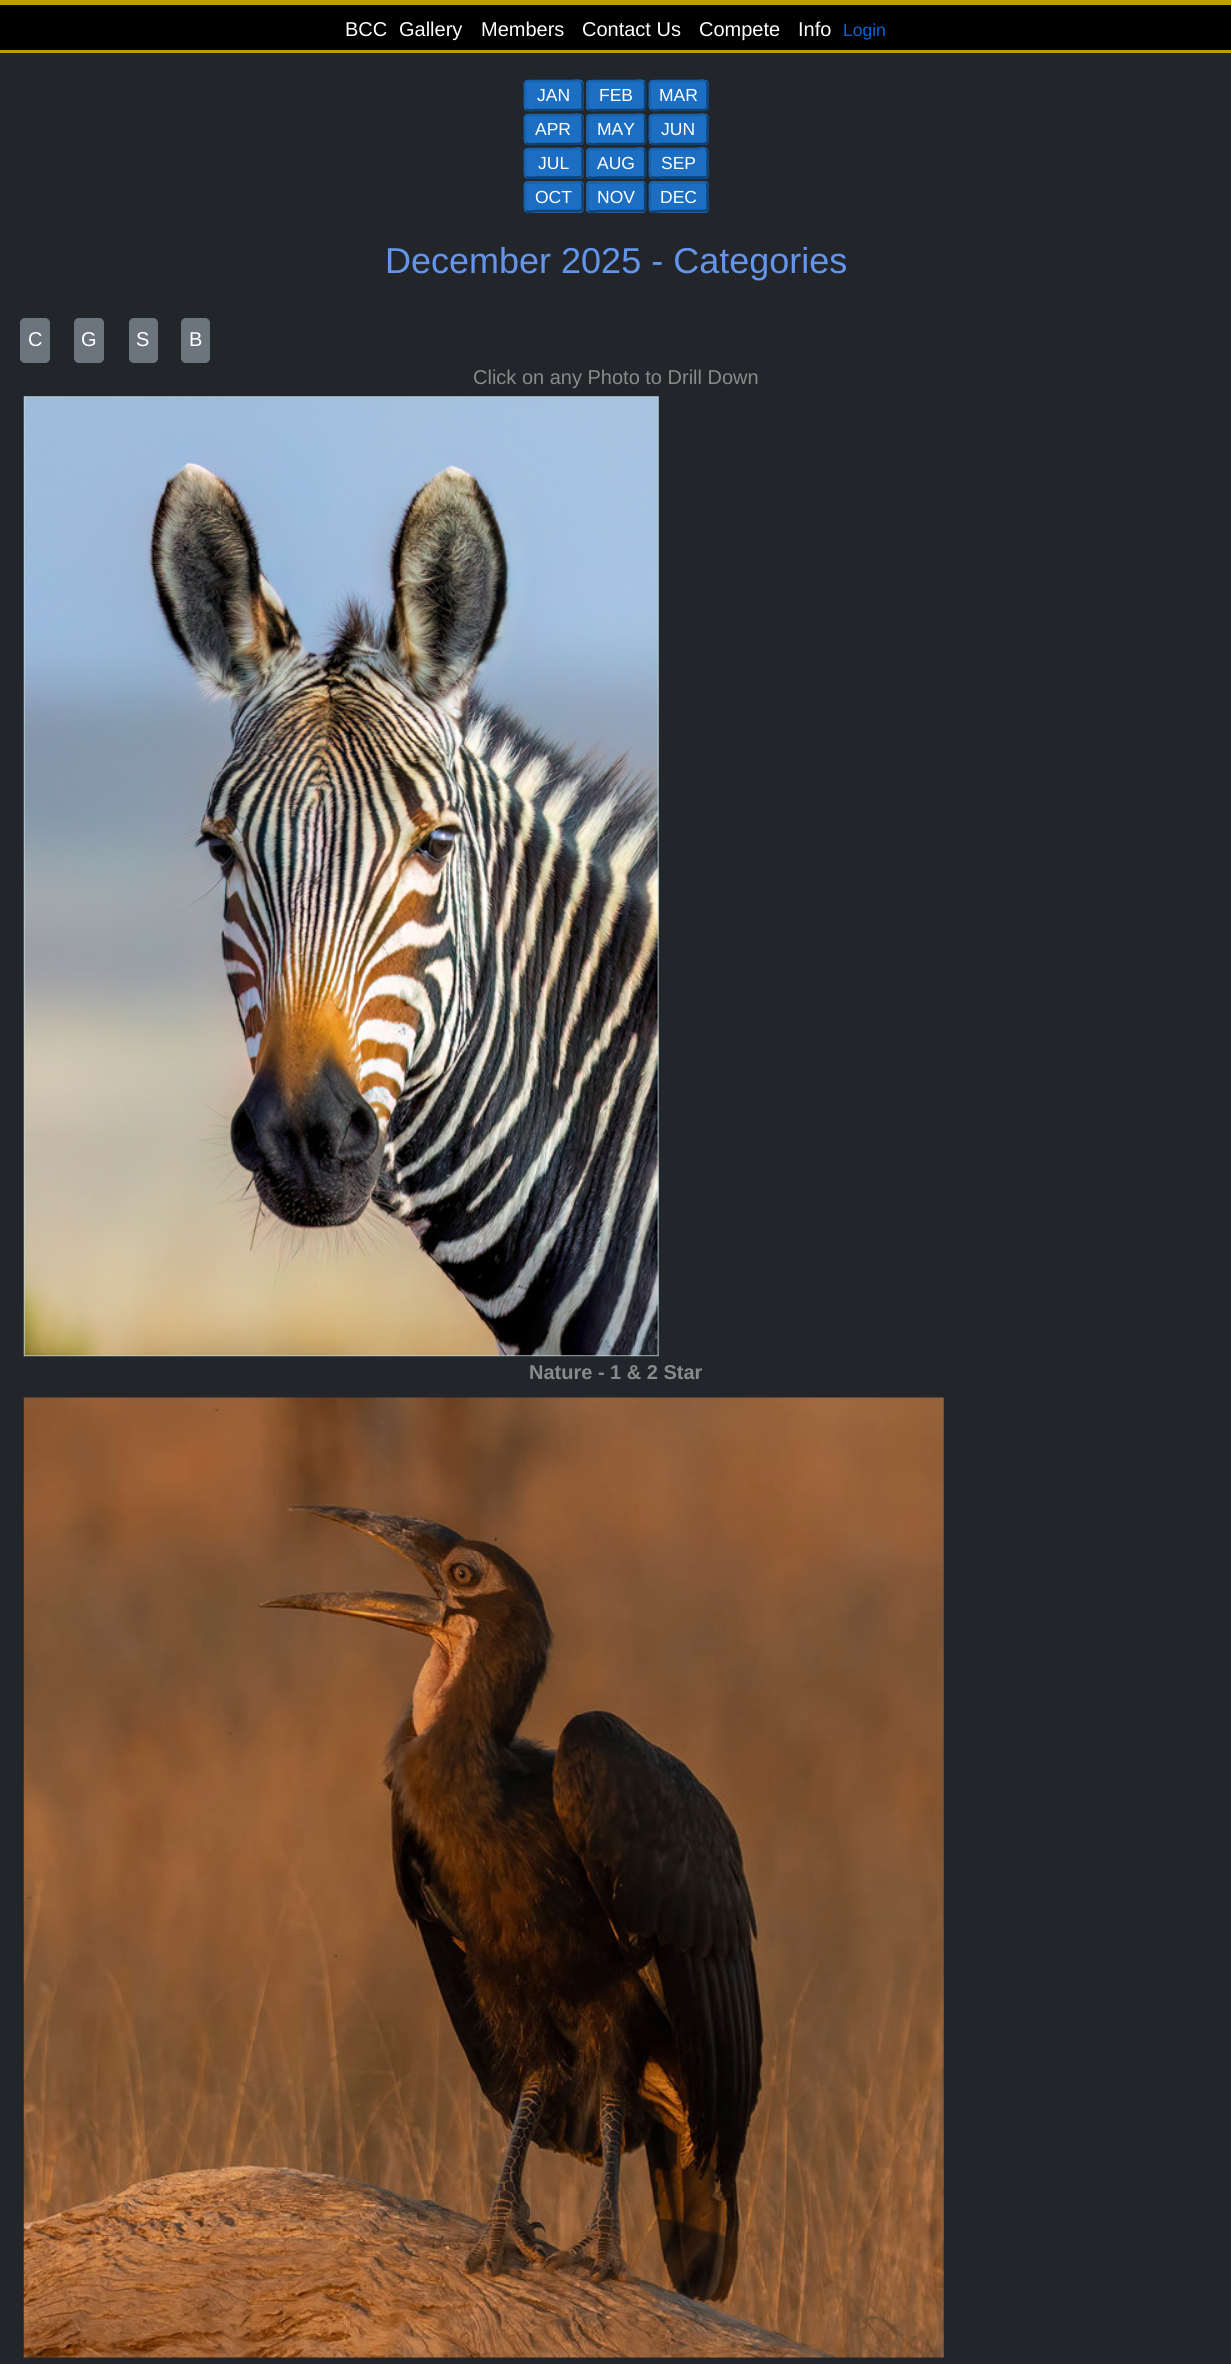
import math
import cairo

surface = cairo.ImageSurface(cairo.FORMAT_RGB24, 1231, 2364)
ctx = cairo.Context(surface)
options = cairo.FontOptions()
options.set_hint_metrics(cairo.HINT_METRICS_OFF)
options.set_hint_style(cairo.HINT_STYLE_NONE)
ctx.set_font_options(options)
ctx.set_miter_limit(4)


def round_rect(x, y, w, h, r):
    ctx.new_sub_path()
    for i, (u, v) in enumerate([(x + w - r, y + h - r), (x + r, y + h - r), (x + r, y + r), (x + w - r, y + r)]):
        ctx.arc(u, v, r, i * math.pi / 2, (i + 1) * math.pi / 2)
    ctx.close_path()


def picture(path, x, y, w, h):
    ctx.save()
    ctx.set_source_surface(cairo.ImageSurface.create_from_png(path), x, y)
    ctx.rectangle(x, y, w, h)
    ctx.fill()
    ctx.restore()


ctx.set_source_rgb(0.133, 0.149, 0.165)
ctx.paint()
ctx.set_source_rgb(0.749, 0.624, 0)
ctx.rectangle(0, 0, 1231, 5)
ctx.fill()
ctx.set_source_rgb(0, 0, 0)
ctx.rectangle(0, 5, 1231, 45)
ctx.fill()
ctx.select_font_face("Liberation Sans")
ctx.set_font_size(20)
ctx.set_source_rgb(1, 1, 1)
ctx.move_to(345, 36)
ctx.show_text("BCC")
ctx.move_to(399, 36)
ctx.show_text("Gallery")
ctx.move_to(481, 36)
ctx.show_text("Members")
ctx.move_to(582, 36)
ctx.show_text("Contact Us")
ctx.move_to(699, 36)
ctx.show_text("Compete")
ctx.move_to(798, 36)
ctx.show_text("Info")
ctx.set_font_size(17.5)
ctx.set_source_rgb(0.012, 0.4, 0.839)
ctx.move_to(843, 36)
ctx.show_text("Login")
ctx.set_source_rgb(0.749, 0.624, 0)
ctx.rectangle(0, 50, 1231, 3)
ctx.fill()
ctx.set_source_rgb(0.106, 0.431, 0.761)
round_rect(524, 80, 60, 31, 4)
ctx.fill()
ctx.new_path()
ctx.move_to(581.5, 82)
ctx.curve_to(583.5, 84, 582.5, 93, 582.5, 95.5)
ctx.curve_to(582.5, 111, 585.5, 110, 571, 110)
ctx.line_to(536.5, 110)
ctx.curve_to(533, 110, 528.5, 111.5, 526, 109)
ctx.set_source_rgb(0.063, 0.255, 0.451)
ctx.set_line_width(2.5)
ctx.stroke()
ctx.new_path()
ctx.move_to(526, 109)
ctx.curve_to(524, 107.5, 525, 98, 525, 95.5)
ctx.curve_to(525, 80, 522, 81, 536.5, 81)
ctx.line_to(571, 81)
ctx.curve_to(574.5, 81, 579, 79.5, 581.5, 82)
ctx.set_source_rgb(0.094, 0.38, 0.675)
ctx.stroke()
ctx.set_source_rgb(1, 1, 1)
ctx.move_to(537, 101)
ctx.show_text("JAN")
ctx.set_source_rgb(0.106, 0.431, 0.761)
round_rect(586, 80, 60, 31, 4)
ctx.fill()
ctx.new_path()
ctx.move_to(644, 82)
ctx.curve_to(646, 84, 645, 93, 645, 95.5)
ctx.curve_to(645, 111, 648, 110, 633.5, 110)
ctx.line_to(599, 110)
ctx.curve_to(595.5, 110, 591, 111.5, 588.5, 109)
ctx.set_source_rgb(0.063, 0.255, 0.451)
ctx.stroke()
ctx.new_path()
ctx.move_to(588.5, 109)
ctx.curve_to(586.5, 107.5, 587.5, 98, 587.5, 95.5)
ctx.curve_to(587.5, 80, 584.5, 81, 599, 81)
ctx.line_to(633.5, 81)
ctx.curve_to(637, 81, 641.5, 79.5, 644, 82)
ctx.set_source_rgb(0.094, 0.38, 0.675)
ctx.stroke()
ctx.set_source_rgb(1, 1, 1)
ctx.move_to(599, 101)
ctx.show_text("FEB")
ctx.set_source_rgb(0.106, 0.431, 0.761)
round_rect(649, 80, 60, 31, 4)
ctx.fill()
ctx.new_path()
ctx.move_to(706.5, 82)
ctx.curve_to(708.5, 84, 707.5, 93, 707.5, 95.5)
ctx.curve_to(707.5, 111, 710.5, 110, 696, 110)
ctx.line_to(661.5, 110)
ctx.curve_to(658, 110, 653.5, 111.5, 651, 109)
ctx.set_source_rgb(0.063, 0.255, 0.451)
ctx.stroke()
ctx.new_path()
ctx.move_to(651, 109)
ctx.curve_to(649, 107.5, 650, 98, 650, 95.5)
ctx.curve_to(650, 80, 647, 81, 661.5, 81)
ctx.line_to(696, 81)
ctx.curve_to(699.5, 81, 704, 79.5, 706.5, 82)
ctx.set_source_rgb(0.094, 0.38, 0.675)
ctx.stroke()
ctx.set_source_rgb(1, 1, 1)
ctx.move_to(659, 101)
ctx.show_text("MAR")
ctx.set_source_rgb(0.106, 0.431, 0.761)
round_rect(524, 114, 60, 31, 4)
ctx.fill()
ctx.new_path()
ctx.move_to(581.5, 116)
ctx.curve_to(583.5, 117.5, 582.5, 127, 582.5, 129.5)
ctx.curve_to(582.5, 145, 585.5, 144, 571, 144)
ctx.line_to(536.5, 144)
ctx.curve_to(533, 144, 528.5, 145.5, 526, 143)
ctx.set_source_rgb(0.063, 0.255, 0.451)
ctx.stroke()
ctx.new_path()
ctx.move_to(526, 143)
ctx.curve_to(524, 141, 525, 132, 525, 129.5)
ctx.curve_to(525, 114, 522, 115, 536.5, 115)
ctx.line_to(571, 115)
ctx.curve_to(574.5, 115, 579, 113.5, 581.5, 116)
ctx.set_source_rgb(0.094, 0.38, 0.675)
ctx.stroke()
ctx.set_source_rgb(1, 1, 1)
ctx.move_to(535, 135)
ctx.show_text("APR")
ctx.set_source_rgb(0.106, 0.431, 0.761)
round_rect(586, 114, 60, 31, 4)
ctx.fill()
ctx.new_path()
ctx.move_to(644, 116)
ctx.curve_to(646, 117.5, 645, 127, 645, 129.5)
ctx.curve_to(645, 145, 648, 144, 633.5, 144)
ctx.line_to(599, 144)
ctx.curve_to(595.5, 144, 591, 145.5, 588.5, 143)
ctx.set_source_rgb(0.063, 0.255, 0.451)
ctx.stroke()
ctx.new_path()
ctx.move_to(588.5, 143)
ctx.curve_to(586.5, 141, 587.5, 132, 587.5, 129.5)
ctx.curve_to(587.5, 114, 584.5, 115, 599, 115)
ctx.line_to(633.5, 115)
ctx.curve_to(637, 115, 641.5, 113.5, 644, 116)
ctx.set_source_rgb(0.094, 0.38, 0.675)
ctx.stroke()
ctx.set_source_rgb(1, 1, 1)
ctx.move_to(597, 135)
ctx.show_text("MAY")
ctx.set_source_rgb(0.106, 0.431, 0.761)
round_rect(649, 114, 60, 31, 4)
ctx.fill()
ctx.new_path()
ctx.move_to(706.5, 116)
ctx.curve_to(708.5, 117.5, 707.5, 127, 707.5, 129.5)
ctx.curve_to(707.5, 145, 710.5, 144, 696, 144)
ctx.line_to(661.5, 144)
ctx.curve_to(658, 144, 653.5, 145.5, 651, 143)
ctx.set_source_rgb(0.063, 0.255, 0.451)
ctx.stroke()
ctx.new_path()
ctx.move_to(651, 143)
ctx.curve_to(649, 141, 650, 132, 650, 129.5)
ctx.curve_to(650, 114, 647, 115, 661.5, 115)
ctx.line_to(696, 115)
ctx.curve_to(699.5, 115, 704, 113.5, 706.5, 116)
ctx.set_source_rgb(0.094, 0.38, 0.675)
ctx.stroke()
ctx.set_source_rgb(1, 1, 1)
ctx.move_to(661, 135)
ctx.show_text("JUN")
ctx.set_source_rgb(0.106, 0.431, 0.761)
round_rect(524, 148, 60, 31, 4)
ctx.fill()
ctx.new_path()
ctx.move_to(581.5, 149.5)
ctx.curve_to(583.5, 151.5, 582.5, 160.5, 582.5, 163)
ctx.curve_to(582.5, 178.5, 585.5, 177.5, 571, 177.5)
ctx.line_to(536.5, 177.5)
ctx.curve_to(533, 177.5, 528.5, 179, 526, 176.5)
ctx.set_source_rgb(0.063, 0.255, 0.451)
ctx.stroke()
ctx.new_path()
ctx.move_to(526, 176.5)
ctx.curve_to(524, 175, 525, 165.5, 525, 163)
ctx.curve_to(525, 147.5, 522, 149, 536.5, 149)
ctx.line_to(571, 149)
ctx.curve_to(574.5, 149, 579, 147, 581.5, 149.5)
ctx.set_source_rgb(0.094, 0.38, 0.675)
ctx.stroke()
ctx.set_source_rgb(1, 1, 1)
ctx.move_to(538, 169)
ctx.show_text("JUL")
ctx.set_source_rgb(0.106, 0.431, 0.761)
round_rect(586, 148, 60, 31, 4)
ctx.fill()
ctx.new_path()
ctx.move_to(644, 149.5)
ctx.curve_to(646, 151.5, 645, 160.5, 645, 163)
ctx.curve_to(645, 178.5, 648, 177.5, 633.5, 177.5)
ctx.line_to(599, 177.5)
ctx.curve_to(595.5, 177.5, 591, 179, 588.5, 176.5)
ctx.set_source_rgb(0.063, 0.255, 0.451)
ctx.stroke()
ctx.new_path()
ctx.move_to(588.5, 176.5)
ctx.curve_to(586.5, 175, 587.5, 165.5, 587.5, 163)
ctx.curve_to(587.5, 147.5, 584.5, 149, 599, 149)
ctx.line_to(633.5, 149)
ctx.curve_to(637, 149, 641.5, 147, 644, 149.5)
ctx.set_source_rgb(0.094, 0.38, 0.675)
ctx.stroke()
ctx.set_source_rgb(1, 1, 1)
ctx.move_to(597, 169)
ctx.show_text("AUG")
ctx.set_source_rgb(0.106, 0.431, 0.761)
round_rect(649, 148, 60, 31, 4)
ctx.fill()
ctx.new_path()
ctx.move_to(706.5, 149.5)
ctx.curve_to(708.5, 151.5, 707.5, 160.5, 707.5, 163)
ctx.curve_to(707.5, 178.5, 710.5, 177.5, 696, 177.5)
ctx.line_to(661.5, 177.5)
ctx.curve_to(658, 177.5, 653.5, 179, 651, 176.5)
ctx.set_source_rgb(0.063, 0.255, 0.451)
ctx.stroke()
ctx.new_path()
ctx.move_to(651, 176.5)
ctx.curve_to(649, 175, 650, 165.5, 650, 163)
ctx.curve_to(650, 147.5, 647, 149, 661.5, 149)
ctx.line_to(696, 149)
ctx.curve_to(699.5, 149, 704, 147, 706.5, 149.5)
ctx.set_source_rgb(0.094, 0.38, 0.675)
ctx.stroke()
ctx.set_source_rgb(1, 1, 1)
ctx.move_to(661, 169)
ctx.show_text("SEP")
ctx.set_source_rgb(0.106, 0.431, 0.761)
round_rect(524, 181, 60, 32, 4)
ctx.fill()
ctx.new_path()
ctx.move_to(581.5, 183.5)
ctx.curve_to(583.5, 185, 582.5, 194.5, 582.5, 197)
ctx.curve_to(582.5, 212.5, 585.5, 211, 571, 211)
ctx.line_to(536.5, 211)
ctx.curve_to(533, 211, 528.5, 213, 526, 210.5)
ctx.set_source_rgb(0.063, 0.255, 0.451)
ctx.stroke()
ctx.new_path()
ctx.move_to(526, 210.5)
ctx.curve_to(524, 208.5, 525, 199.5, 525, 197)
ctx.curve_to(525, 181.5, 522, 182.5, 536.5, 182.5)
ctx.line_to(571, 182.5)
ctx.curve_to(574.5, 182.5, 579, 181, 581.5, 183.5)
ctx.set_source_rgb(0.094, 0.38, 0.675)
ctx.stroke()
ctx.set_source_rgb(1, 1, 1)
ctx.move_to(535, 203)
ctx.show_text("OCT")
ctx.set_source_rgb(0.106, 0.431, 0.761)
round_rect(586, 181, 60, 32, 4)
ctx.fill()
ctx.new_path()
ctx.move_to(644, 183.5)
ctx.curve_to(646, 185, 645, 194.5, 645, 197)
ctx.curve_to(645, 212.5, 648, 211, 633.5, 211)
ctx.line_to(599, 211)
ctx.curve_to(595.5, 211, 591, 213, 588.5, 210.5)
ctx.set_source_rgb(0.063, 0.255, 0.451)
ctx.stroke()
ctx.new_path()
ctx.move_to(588.5, 210.5)
ctx.curve_to(586.5, 208.5, 587.5, 199.5, 587.5, 197)
ctx.curve_to(587.5, 181.5, 584.5, 182.5, 599, 182.5)
ctx.line_to(633.5, 182.5)
ctx.curve_to(637, 182.5, 641.5, 181, 644, 183.5)
ctx.set_source_rgb(0.094, 0.38, 0.675)
ctx.stroke()
ctx.set_source_rgb(1, 1, 1)
ctx.move_to(597, 203)
ctx.show_text("NOV")
ctx.set_source_rgb(0.106, 0.431, 0.761)
round_rect(649, 181, 60, 32, 4)
ctx.fill()
ctx.new_path()
ctx.move_to(706.5, 183.5)
ctx.curve_to(708.5, 185, 707.5, 194.5, 707.5, 197)
ctx.curve_to(707.5, 212.5, 710.5, 211, 696, 211)
ctx.line_to(661.5, 211)
ctx.curve_to(658, 211, 653.5, 213, 651, 210.5)
ctx.set_source_rgb(0.063, 0.255, 0.451)
ctx.stroke()
ctx.new_path()
ctx.move_to(651, 210.5)
ctx.curve_to(649, 208.5, 650, 199.5, 650, 197)
ctx.curve_to(650, 181.5, 647, 182.5, 661.5, 182.5)
ctx.line_to(696, 182.5)
ctx.curve_to(699.5, 182.5, 704, 181, 706.5, 183.5)
ctx.set_source_rgb(0.094, 0.38, 0.675)
ctx.stroke()
ctx.set_source_rgb(1, 1, 1)
ctx.move_to(660, 203)
ctx.show_text("DEC")
ctx.set_font_size(36)
ctx.set_source_rgb(0.392, 0.584, 0.929)
ctx.move_to(385, 273)
ctx.show_text("December 2025 - Categories")
ctx.set_source_rgb(0.424, 0.459, 0.49)
round_rect(20.5, 318.5, 29, 44, 4.5)
ctx.fill_preserve()
ctx.set_line_width(1)
ctx.stroke()
ctx.set_font_size(20)
ctx.set_source_rgb(1, 1, 1)
ctx.move_to(28, 346)
ctx.show_text("C")
ctx.set_source_rgb(0.424, 0.459, 0.49)
round_rect(74.5, 318.5, 29, 44, 4.5)
ctx.fill_preserve()
ctx.stroke()
ctx.set_source_rgb(1, 1, 1)
ctx.move_to(81, 346)
ctx.show_text("G")
ctx.set_source_rgb(0.424, 0.459, 0.49)
round_rect(129.5, 318.5, 28, 44, 4.5)
ctx.fill_preserve()
ctx.stroke()
ctx.set_source_rgb(1, 1, 1)
ctx.move_to(136, 346)
ctx.show_text("S")
ctx.set_source_rgb(0.424, 0.459, 0.49)
round_rect(181.5, 318.5, 28, 44, 4.5)
ctx.fill_preserve()
ctx.stroke()
ctx.set_source_rgb(1, 1, 1)
ctx.move_to(189, 346)
ctx.show_text("B")
ctx.set_source_rgb(0.541, 0.541, 0.549)
ctx.move_to(473, 384)
ctx.show_text("Click on any Photo to Drill Down")
picture("img1.png", 23, 396, 636, 961)
ctx.select_font_face("Liberation Sans", cairo.FONT_SLANT_NORMAL, cairo.FONT_WEIGHT_BOLD)
ctx.move_to(529, 1379)
ctx.show_text("Nature - 1 & 2 Star")
picture("img2.png", 23, 1397, 921, 961)
surface.write_to_png("page.png")
